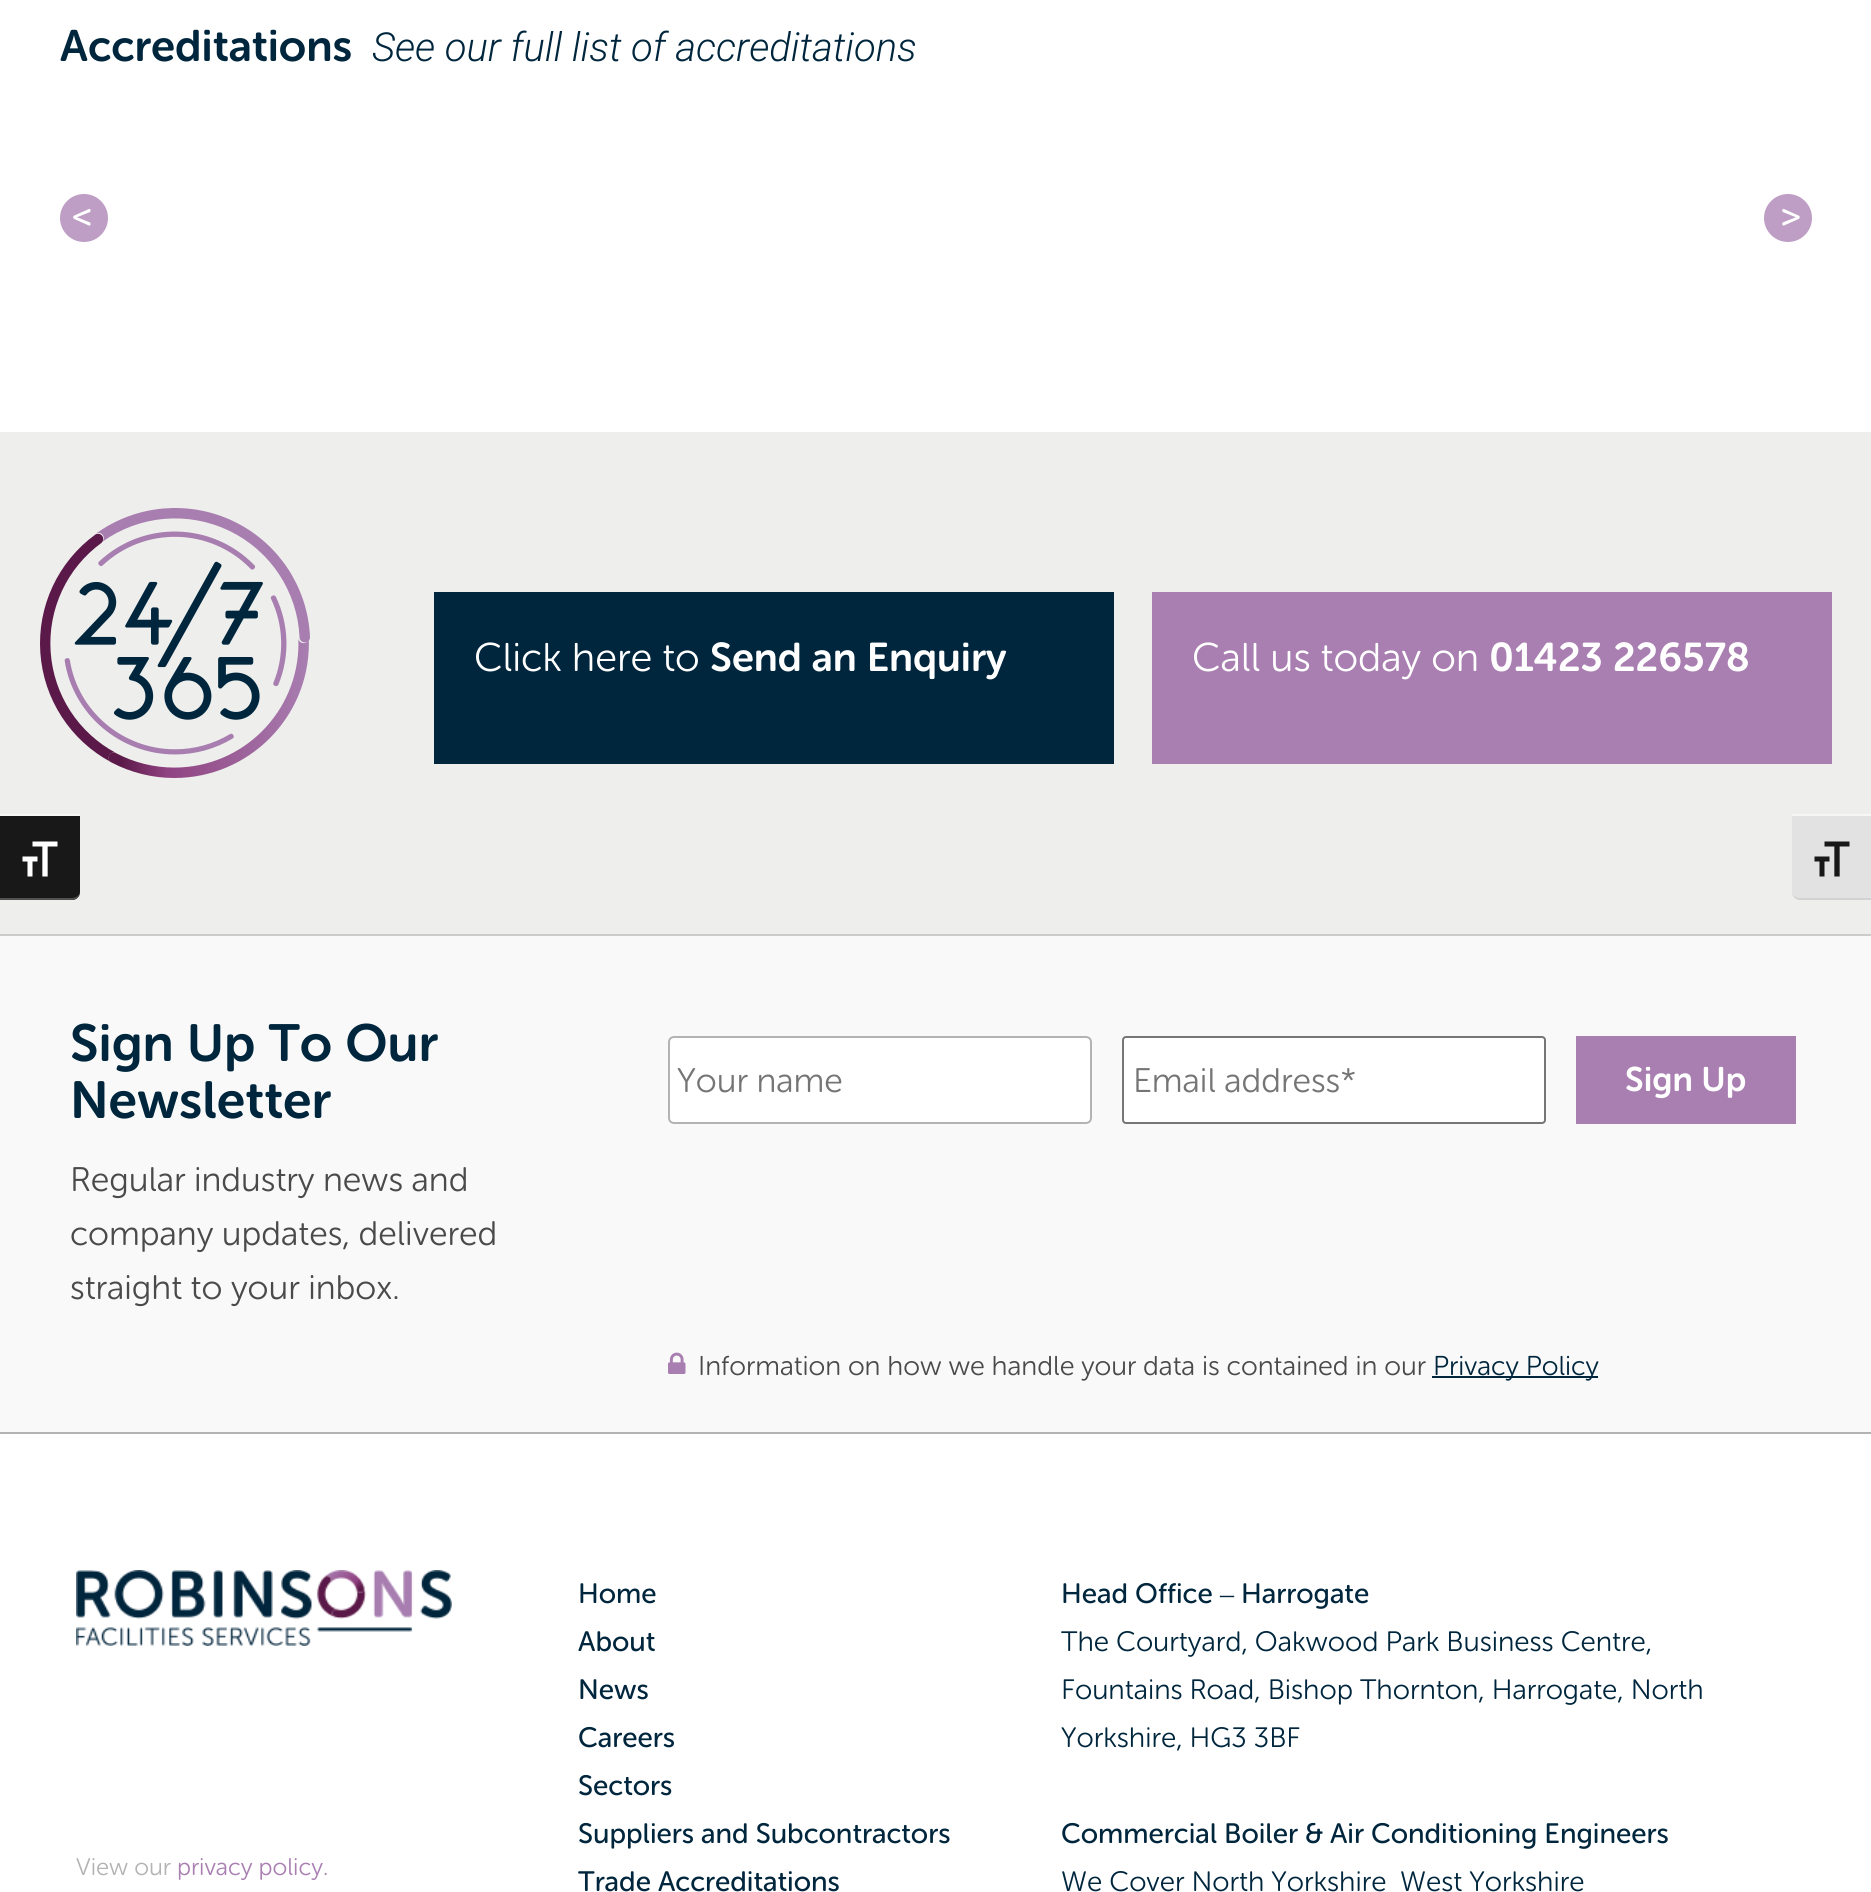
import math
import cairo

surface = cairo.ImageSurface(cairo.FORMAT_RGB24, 1871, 1892)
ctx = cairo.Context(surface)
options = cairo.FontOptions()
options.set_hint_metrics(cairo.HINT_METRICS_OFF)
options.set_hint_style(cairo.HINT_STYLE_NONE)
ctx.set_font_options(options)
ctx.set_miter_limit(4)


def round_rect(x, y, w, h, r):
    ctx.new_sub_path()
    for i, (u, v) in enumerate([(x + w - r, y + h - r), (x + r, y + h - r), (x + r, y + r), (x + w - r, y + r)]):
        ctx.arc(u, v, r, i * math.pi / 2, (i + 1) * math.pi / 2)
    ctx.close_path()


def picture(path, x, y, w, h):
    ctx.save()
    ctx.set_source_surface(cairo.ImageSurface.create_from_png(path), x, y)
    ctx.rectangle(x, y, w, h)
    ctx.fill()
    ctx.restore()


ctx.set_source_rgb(1, 1, 1)
ctx.paint()
ctx.select_font_face("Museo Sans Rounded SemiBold")
ctx.set_font_size(44)
ctx.set_source_rgb(0, 0.149, 0.239)
ctx.move_to(60, 61)
ctx.show_text("Accreditations")
ctx.select_font_face("Roboto Light", cairo.FONT_SLANT_ITALIC)
ctx.set_font_size(40)
ctx.move_to(372, 61)
ctx.show_text("See our full list of accreditations")
ctx.set_source_rgb(0.749, 0.62, 0.773)
ctx.new_path()
ctx.arc(84, 218, 24, 0, 2 * math.pi)
ctx.fill()
ctx.select_font_face("Museo Sans Rounded", cairo.FONT_SLANT_NORMAL, cairo.FONT_WEIGHT_BOLD)
ctx.set_font_size(36)
ctx.set_source_rgb(1, 1, 1)
ctx.move_to(71, 228)
ctx.show_text("<")
ctx.set_source_rgb(0.749, 0.62, 0.773)
ctx.new_path()
ctx.arc(1788, 218, 24, 0, 2 * math.pi)
ctx.fill()
ctx.set_source_rgb(1, 1, 1)
ctx.move_to(1779, 228)
ctx.show_text(">")
ctx.set_source_rgb(0.933, 0.933, 0.922)
ctx.rectangle(0, 432, 1871, 502)
ctx.fill()
picture("img1.png", 40, 508, 270, 270)
ctx.set_source_rgb(0, 0.149, 0.239)
ctx.rectangle(434, 592, 680, 172)
ctx.fill()
ctx.select_font_face("Museo Sans Rounded Light")
ctx.set_font_size(40)
ctx.set_source_rgb(1, 1, 1)
ctx.move_to(474, 671)
ctx.show_text("Click here to")
ctx.select_font_face("Museo Sans Rounded SemiBold")
ctx.move_to(710, 671)
ctx.show_text("Send an Enquiry")
ctx.set_source_rgb(0.663, 0.494, 0.694)
ctx.rectangle(1152, 592, 680, 172)
ctx.fill()
ctx.select_font_face("Museo Sans Rounded Light")
ctx.set_source_rgb(1, 1, 1)
ctx.move_to(1192, 671)
ctx.show_text("Call us today on")
ctx.select_font_face("Museo Sans Rounded SemiBold")
ctx.move_to(1489, 671)
ctx.show_text("01423 226578")
ctx.set_source_rgb(0.094, 0.094, 0.094)
ctx.new_path()
ctx.move_to(0, 814)
ctx.line_to(80, 814)
ctx.line_to(80, 892)
ctx.curve_to(80, 896.5, 76.5, 900, 72, 900)
ctx.line_to(0, 900)
ctx.close_path()
ctx.fill()
ctx.set_source_rgb(0.961, 0.961, 0.961)
ctx.rectangle(0, 814, 80, 2)
ctx.fill()
ctx.set_source_rgb(0.322, 0.322, 0.322)
ctx.new_path()
ctx.move_to(0, 898)
ctx.line_to(0, 900)
ctx.line_to(72, 900)
ctx.curve_to(76, 900, 80, 896, 80, 892)
ctx.curve_to(80, 895, 76, 898, 72, 898)
ctx.close_path()
ctx.fill()
picture("img2.png", 22, 841, 36, 36)
ctx.set_source_rgb(0.973, 0.973, 0.973)
ctx.rectangle(0, 936, 1871, 496)
ctx.fill()
ctx.set_source_rgb(0.8, 0.8, 0.8)
ctx.rectangle(0, 934, 1871, 2)
ctx.fill()
ctx.set_font_size(52)
ctx.set_source_rgb(0, 0.149, 0.239)
ctx.move_to(70, 1061)
ctx.show_text("Sign Up To Our")
ctx.move_to(70, 1118)
ctx.show_text("Newsletter")
ctx.select_font_face("Museo Sans Rounded Light")
ctx.set_font_size(34)
ctx.set_source_rgb(0.29, 0.29, 0.29)
ctx.move_to(70, 1191)
ctx.show_text("Regular industry news and")
ctx.move_to(70, 1245)
ctx.show_text("company updates, delivered")
ctx.move_to(70, 1299)
ctx.show_text("straight to your inbox.")
ctx.set_source_rgb(1, 1, 1)
round_rect(669, 1037, 422, 86, 5)
ctx.fill_preserve()
ctx.set_source_rgb(0.706, 0.698, 0.698)
ctx.stroke()
ctx.set_source_rgb(0.459, 0.459, 0.459)
ctx.move_to(677, 1092)
ctx.show_text("Your name")
ctx.set_source_rgb(1, 1, 1)
round_rect(1123, 1037, 422, 86, 3)
ctx.fill_preserve()
ctx.set_source_rgb(0.463, 0.463, 0.463)
ctx.stroke()
ctx.set_source_rgb(0.459, 0.459, 0.459)
ctx.move_to(1133, 1092)
ctx.show_text("Email address*")
ctx.set_source_rgb(0.663, 0.494, 0.694)
ctx.rectangle(1576, 1036, 220, 88)
ctx.fill()
ctx.select_font_face("Museo Sans Rounded SemiBold")
ctx.set_source_rgb(1, 1, 1)
ctx.move_to(1625, 1091)
ctx.show_text("Sign Up")
picture("img3.png", 668, 1352, 18, 22)
ctx.select_font_face("Museo Sans Rounded Light")
ctx.set_font_size(27.2)
ctx.set_source_rgb(0.29, 0.29, 0.29)
ctx.move_to(698, 1375)
ctx.show_text("Information on how we handle your data is contained in our")
ctx.set_source_rgb(0, 0.149, 0.239)
ctx.rectangle(1432, 1376, 166, 2)
ctx.fill()
ctx.move_to(1433, 1375)
ctx.show_text("Privacy Policy")
ctx.set_source_rgb(0.706, 0.698, 0.698)
ctx.rectangle(0, 1432, 1871, 2)
ctx.fill()
picture("img4.png", 76, 1570, 376, 76)
ctx.set_font_size(24)
ctx.move_to(76, 1875)
ctx.show_text("View our")
ctx.set_source_rgb(0.663, 0.494, 0.694)
ctx.move_to(177, 1875)
ctx.show_text("privacy policy.")
ctx.select_font_face("Museo Sans Rounded")
ctx.set_font_size(28)
ctx.set_source_rgb(0, 0.149, 0.239)
ctx.move_to(578, 1603)
ctx.show_text("Home")
ctx.move_to(578, 1651)
ctx.show_text("About")
ctx.move_to(578, 1699)
ctx.show_text("News")
ctx.move_to(578, 1747)
ctx.show_text("Careers")
ctx.move_to(578, 1795)
ctx.show_text("Sectors")
ctx.move_to(578, 1843)
ctx.show_text("Suppliers and Subcontractors")
ctx.move_to(578, 1891)
ctx.show_text("Trade Accreditations")
ctx.move_to(1061, 1603)
ctx.show_text("Head Office")
ctx.select_font_face("Liberation Serif")
ctx.move_to(1220, 1603)
ctx.show_text("–")
ctx.select_font_face("Museo Sans Rounded")
ctx.move_to(1241, 1603)
ctx.show_text("Harrogate")
ctx.select_font_face("Museo Sans Rounded Light")
ctx.move_to(1061, 1651)
ctx.show_text("The Courtyard, Oakwood Park Business Centre,")
ctx.move_to(1061, 1699)
ctx.show_text("Fountains Road, Bishop Thornton, Harrogate, North")
ctx.move_to(1061, 1747)
ctx.show_text("Yorkshire, HG3 3BF")
ctx.select_font_face("Museo Sans Rounded")
ctx.move_to(1061, 1843)
ctx.show_text("Commercial Boiler & Air Conditioning Engineers")
ctx.select_font_face("Museo Sans Rounded Light")
ctx.move_to(1061, 1891)
ctx.show_text("We Cover North Yorkshire")
ctx.move_to(1400, 1891)
ctx.show_text("West Yorkshire")
ctx.set_source_rgb(0.886, 0.886, 0.886)
ctx.new_path()
ctx.move_to(1792, 814)
ctx.line_to(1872, 814)
ctx.line_to(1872, 900)
ctx.line_to(1800, 900)
ctx.curve_to(1795.5, 900, 1792, 896.5, 1792, 892)
ctx.close_path()
ctx.fill()
ctx.set_source_rgb(0.961, 0.961, 0.961)
ctx.rectangle(1792, 814, 79, 2)
ctx.fill()
ctx.set_source_rgb(0.824, 0.824, 0.824)
ctx.new_path()
ctx.move_to(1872, 900)
ctx.line_to(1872, 898)
ctx.line_to(1800, 898)
ctx.curve_to(1796, 898, 1792, 895, 1792, 892)
ctx.curve_to(1792, 896, 1796, 900, 1800, 900)
ctx.close_path()
ctx.fill()
picture("img5.png", 1814, 841, 36, 36)
surface.write_to_png("page.png")
